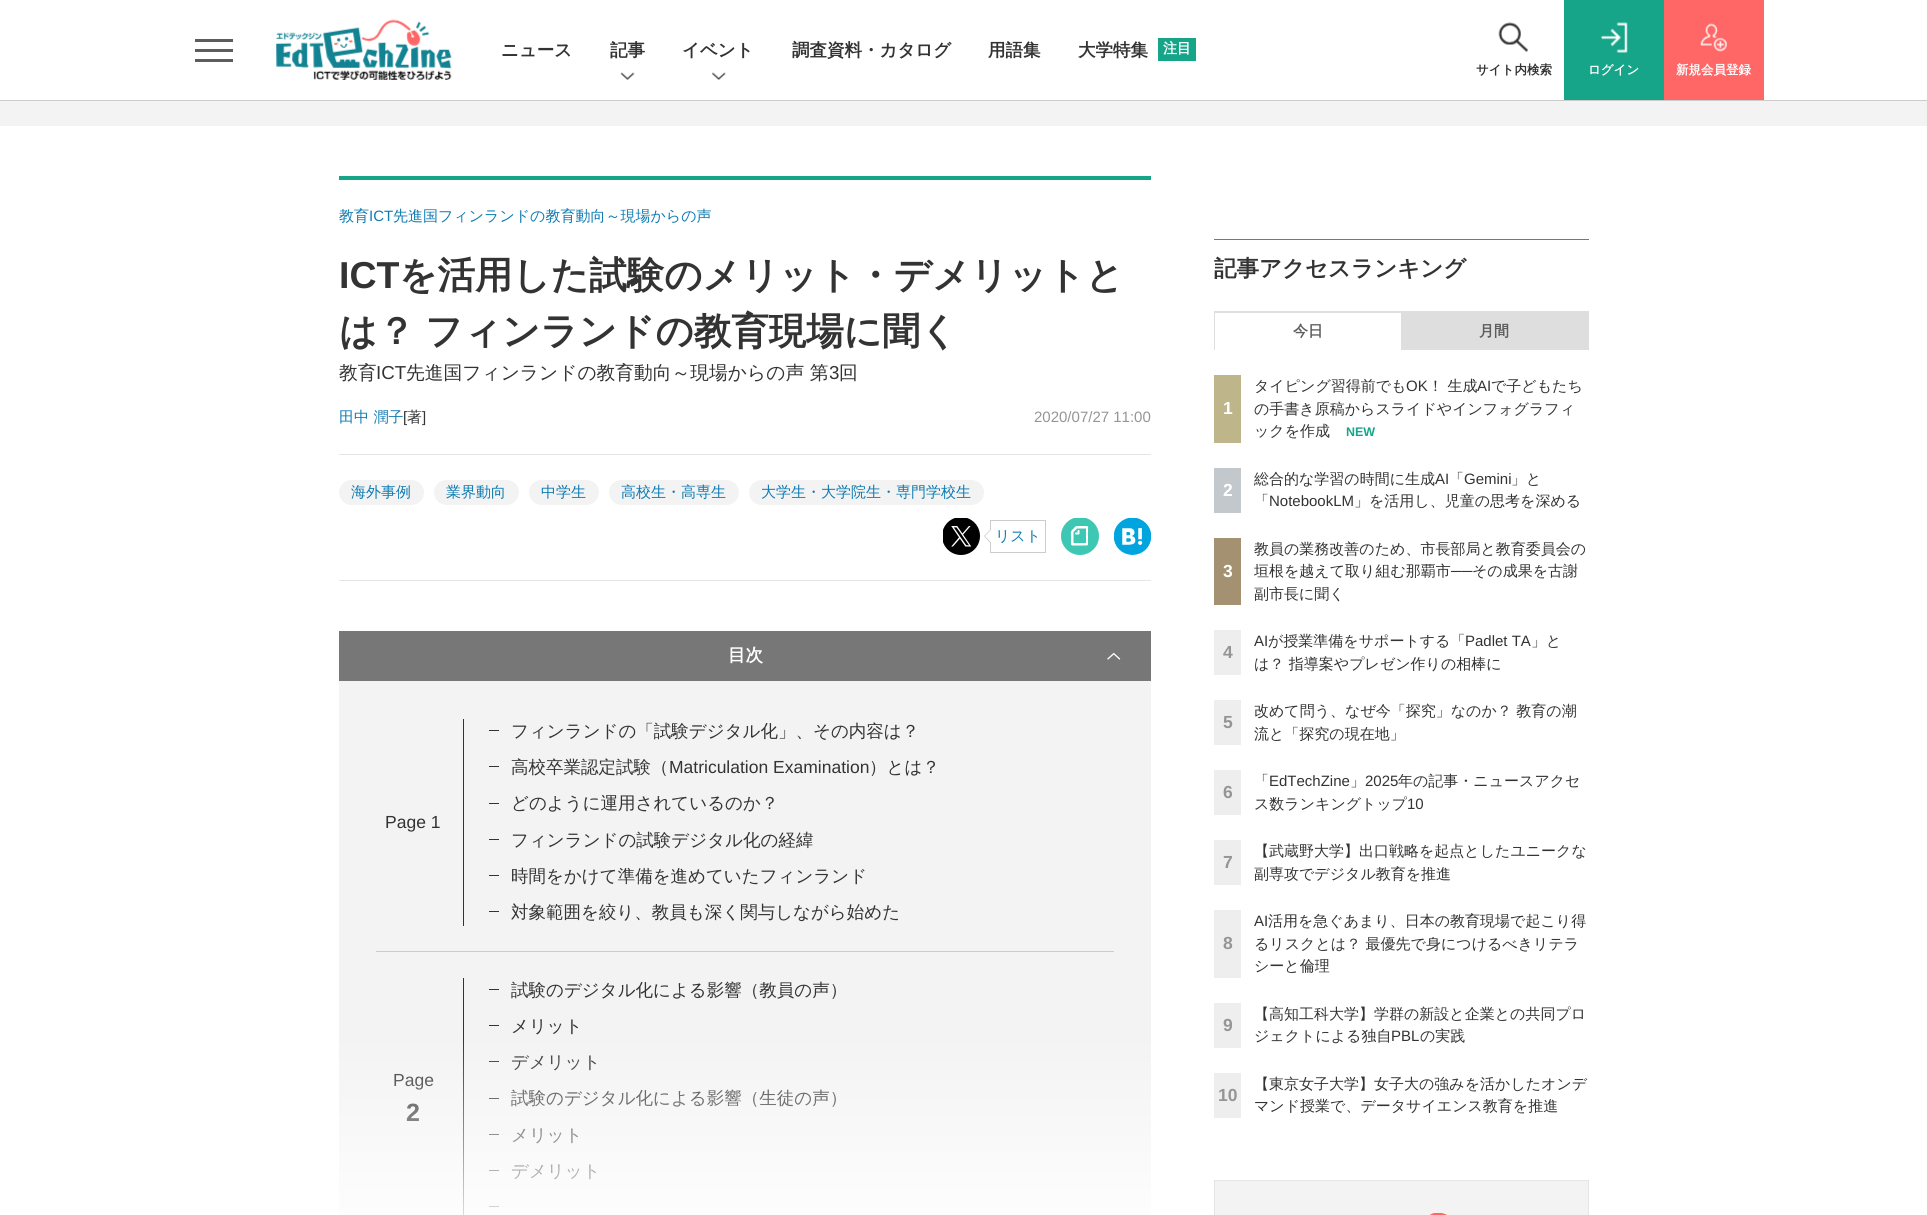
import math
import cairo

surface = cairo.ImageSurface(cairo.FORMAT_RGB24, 1927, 1215)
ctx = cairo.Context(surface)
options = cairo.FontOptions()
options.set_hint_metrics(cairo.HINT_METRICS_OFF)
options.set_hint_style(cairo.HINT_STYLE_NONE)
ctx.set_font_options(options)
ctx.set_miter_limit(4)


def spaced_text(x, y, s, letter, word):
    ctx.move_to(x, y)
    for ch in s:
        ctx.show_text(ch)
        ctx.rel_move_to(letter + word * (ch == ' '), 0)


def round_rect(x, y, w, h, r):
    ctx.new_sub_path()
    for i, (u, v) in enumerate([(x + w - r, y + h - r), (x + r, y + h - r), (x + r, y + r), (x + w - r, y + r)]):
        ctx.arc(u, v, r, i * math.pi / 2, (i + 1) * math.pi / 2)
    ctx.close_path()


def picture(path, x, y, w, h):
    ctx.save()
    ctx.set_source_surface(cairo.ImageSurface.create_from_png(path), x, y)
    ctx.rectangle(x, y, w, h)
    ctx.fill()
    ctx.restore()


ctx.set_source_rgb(1, 1, 1)
ctx.paint()
ctx.set_source_rgb(0.8, 0.8, 0.8)
ctx.rectangle(0, 100, 1927, 1)
ctx.fill()
ctx.set_source_rgb(0.365, 0.365, 0.365)
ctx.rectangle(195, 49, 38, 3)
ctx.fill()
ctx.rectangle(195, 39, 38, 3)
ctx.fill()
ctx.rectangle(195, 59, 38, 3)
ctx.fill()
picture("img1.png", 276, 19, 176, 61)
ctx.select_font_face("WenQuanYi Zen Hei", cairo.FONT_SLANT_NORMAL, cairo.FONT_WEIGHT_BOLD)
ctx.set_font_size(17.5)
ctx.set_source_rgb(0.2, 0.2, 0.2)
ctx.move_to(501, 56)
ctx.show_text("ニュース")
ctx.move_to(610, 56)
ctx.show_text("記事")
picture("img2.png", 620, 72, 15, 8)
ctx.move_to(682, 56)
ctx.show_text("イベント")
picture("img3.png", 712, 72, 14, 8)
ctx.move_to(792, 56)
ctx.show_text("調査資料・カタログ")
ctx.move_to(988, 56)
ctx.show_text("用語集")
ctx.move_to(1078, 56)
ctx.show_text("大学特集")
ctx.set_source_rgb(0.086, 0.647, 0.533)
ctx.rectangle(1158, 38, 38, 23)
ctx.fill()
ctx.set_font_size(14)
ctx.set_source_rgb(1, 1, 1)
ctx.move_to(1163, 53)
ctx.show_text("注目")
picture("img4.png", 1498, 22, 31, 31)
ctx.set_font_size(12.5)
ctx.set_source_rgb(0.2, 0.2, 0.2)
ctx.move_to(1476, 74)
ctx.show_text("サイト内検索")
ctx.set_source_rgb(0.086, 0.647, 0.533)
ctx.rectangle(1564, 0, 100, 100)
ctx.fill()
picture("img5.png", 1600, 22, 28, 31)
ctx.set_source_rgb(1, 1, 1)
ctx.move_to(1588, 74)
ctx.show_text("ログイン")
ctx.set_source_rgb(1, 0.4, 0.4)
ctx.rectangle(1664, 0, 100, 100)
ctx.fill()
picture("img6.png", 1700, 23, 27, 29)
ctx.set_source_rgb(1, 1, 1)
ctx.move_to(1676, 74)
ctx.show_text("新規会員登録")
ctx.set_source_rgb(0.953, 0.953, 0.953)
ctx.rectangle(0, 101, 1927, 25)
ctx.fill()
ctx.set_source_rgb(0.086, 0.647, 0.533)
ctx.rectangle(339, 176, 812, 4)
ctx.fill()
ctx.set_source_rgb(0.898, 0.898, 0.898)
ctx.rectangle(339, 580, 812, 1)
ctx.fill()
ctx.select_font_face("WenQuanYi Zen Hei Medium")
ctx.set_font_size(15)
ctx.set_source_rgb(0.055, 0.482, 0.702)
ctx.move_to(339, 221)
ctx.show_text("教育")
ctx.select_font_face("Liberation Sans")
ctx.move_to(369, 221)
ctx.show_text("ICT")
ctx.select_font_face("WenQuanYi Zen Hei Medium")
ctx.move_to(393, 221)
ctx.show_text("先進国フィンランドの教育動向～現場からの声")
ctx.select_font_face("Liberation Sans", cairo.FONT_SLANT_NORMAL, cairo.FONT_WEIGHT_BOLD)
ctx.set_font_size(37.5)
ctx.set_source_rgb(0.2, 0.2, 0.2)
ctx.move_to(339, 288)
ctx.show_text("ICT")
ctx.select_font_face("WenQuanYi Zen Hei", cairo.FONT_SLANT_NORMAL, cairo.FONT_WEIGHT_BOLD)
ctx.move_to(399, 288)
ctx.show_text("を活用した試験のメリット・デメリットと")
spaced_text(339, 344, "は？ フィンランドの教育現場に聞く", 0, -1)
ctx.select_font_face("WenQuanYi Zen Hei Medium")
ctx.set_font_size(18.75)
ctx.move_to(339, 379)
ctx.show_text("教育")
ctx.select_font_face("Liberation Sans")
ctx.move_to(376, 379)
ctx.show_text("ICT")
ctx.select_font_face("WenQuanYi Zen Hei Medium")
ctx.move_to(406, 379)
ctx.show_text("先進国フィンランドの教育動向～現場からの声 第")
ctx.select_font_face("Liberation Sans")
ctx.move_to(829, 379)
ctx.show_text("3")
ctx.select_font_face("WenQuanYi Zen Hei Medium")
ctx.move_to(839, 379)
ctx.show_text("回")
ctx.set_font_size(15)
ctx.set_source_rgb(0.055, 0.482, 0.702)
ctx.move_to(339, 422)
ctx.show_text("田中 潤子")
ctx.select_font_face("Liberation Sans")
ctx.set_source_rgb(0.2, 0.2, 0.2)
ctx.move_to(403, 422)
ctx.show_text("[")
ctx.select_font_face("WenQuanYi Zen Hei Medium")
ctx.move_to(407, 422)
ctx.show_text("著")
ctx.select_font_face("Liberation Sans")
ctx.move_to(422, 422)
ctx.show_text("]")
ctx.set_source_rgb(0.584, 0.584, 0.584)
ctx.move_to(1034, 422)
ctx.show_text("2020/07/27 11:00")
ctx.set_source_rgb(0.898, 0.898, 0.898)
ctx.rectangle(339, 454, 812, 1)
ctx.fill()
ctx.set_source_rgb(0.953, 0.953, 0.953)
round_rect(339, 480, 85, 25, 12.5)
ctx.fill()
ctx.select_font_face("WenQuanYi Zen Hei Medium")
ctx.set_source_rgb(0.055, 0.482, 0.702)
ctx.move_to(351, 497)
ctx.show_text("海外事例")
ctx.set_source_rgb(0.953, 0.953, 0.953)
round_rect(434, 480, 85, 25, 12.5)
ctx.fill()
ctx.set_source_rgb(0.055, 0.482, 0.702)
ctx.move_to(446, 497)
ctx.show_text("業界動向")
ctx.set_source_rgb(0.953, 0.953, 0.953)
round_rect(529, 480, 70, 25, 12.5)
ctx.fill()
ctx.set_source_rgb(0.055, 0.482, 0.702)
ctx.move_to(541, 497)
ctx.show_text("中学生")
ctx.set_source_rgb(0.953, 0.953, 0.953)
round_rect(609, 480, 130, 25, 12.5)
ctx.fill()
ctx.set_source_rgb(0.055, 0.482, 0.702)
ctx.move_to(621, 497)
ctx.show_text("高校生・高専生")
ctx.set_source_rgb(0.953, 0.953, 0.953)
round_rect(749, 480, 235, 25, 12.5)
ctx.fill()
ctx.set_source_rgb(0.055, 0.482, 0.702)
ctx.move_to(761, 497)
ctx.show_text("大学生・大学院生・専門学校生")
picture("img7.png", 943, 518, 37, 37)
ctx.rectangle(990.5, 520.5, 55, 32)
ctx.set_source_rgb(0.8, 0.8, 0.8)
ctx.set_line_width(1)
ctx.stroke()
ctx.new_path()
ctx.move_to(991, 529)
ctx.line_to(991, 544)
ctx.line_to(984, 536)
ctx.close_path()
ctx.fill()
ctx.set_source_rgb(1, 1, 1)
ctx.new_path()
ctx.move_to(991, 530)
ctx.line_to(991, 542.5)
ctx.line_to(985, 536)
ctx.close_path()
ctx.fill()
ctx.set_source_rgb(0.055, 0.482, 0.702)
ctx.move_to(995, 541)
ctx.show_text("リスト")
ctx.save()
ctx.rectangle(1061, 518, 38, 37)
ctx.clip()
ctx.set_source_rgb(0.243, 0.784, 0.702)
ctx.arc(1080, 536, 19, 0, 2 * math.pi)
ctx.fill()
ctx.restore()
ctx.set_source_rgb(1, 1, 1)
ctx.set_fill_rule(cairo.FILL_RULE_EVEN_ODD)
ctx.new_path()
ctx.move_to(1072.5, 545.5)
ctx.line_to(1084.5, 545.5)
ctx.curve_to(1088.5, 545.5, 1088, 545.5, 1088, 541.5)
ctx.line_to(1088, 530)
ctx.curve_to(1088, 526.5, 1089, 526, 1085, 526)
ctx.line_to(1077, 526)
ctx.curve_to(1075.5, 526, 1075, 527, 1074, 528)
ctx.curve_to(1070, 532, 1071, 531, 1071, 538)
ctx.line_to(1071, 542)
ctx.curve_to(1071, 543, 1070.5, 545.5, 1072.5, 545.5)
ctx.close_path()
ctx.move_to(1077, 528.5)
ctx.line_to(1086, 528.5)
ctx.line_to(1086, 543)
ctx.line_to(1073.5, 543)
ctx.line_to(1073.5, 532)
ctx.close_path()
ctx.move_to(1076, 534.5)
ctx.curve_to(1079, 534.5, 1079.5, 535, 1079.5, 532.5)
ctx.curve_to(1079.5, 531.5, 1080, 530, 1078.5, 530)
ctx.line_to(1077.5, 530.5)
ctx.line_to(1077.5, 532.5)
ctx.line_to(1075.5, 532.5)
ctx.curve_to(1074.5, 533, 1075, 534.5, 1076, 534.5)
ctx.close_path()
ctx.fill()
picture("img8.png", 1114, 518, 37, 37)
ctx.set_source_rgb(0.467, 0.467, 0.467)
ctx.rectangle(339, 631, 812, 50)
ctx.fill()
ctx.select_font_face("WenQuanYi Zen Hei", cairo.FONT_SLANT_NORMAL, cairo.FONT_WEIGHT_BOLD)
ctx.set_font_size(17.5)
ctx.set_source_rgb(1, 1, 1)
ctx.move_to(728, 661)
ctx.show_text("目次")
picture("img9.png", 1107, 652, 14, 8)
ctx.set_source_rgb(0.953, 0.953, 0.953)
ctx.rectangle(339, 681, 812, 534)
ctx.fill()
ctx.set_source_rgb(0.2, 0.2, 0.2)
ctx.rectangle(463, 719, 1, 207)
ctx.fill()
ctx.select_font_face("Liberation Sans")
ctx.move_to(385, 828)
ctx.show_text("Page 1")
ctx.rectangle(489, 730, 10, 1)
ctx.fill()
ctx.select_font_face("WenQuanYi Zen Hei Medium")
ctx.move_to(511, 737)
ctx.show_text("フィンランドの「試験デジタル化」、その内容は？")
ctx.rectangle(489, 766, 10, 1)
ctx.fill()
ctx.move_to(511, 773)
ctx.show_text("高校卒業認定試験（")
ctx.select_font_face("Liberation Sans")
ctx.move_to(669, 773)
ctx.show_text("Matriculation Examination")
ctx.select_font_face("WenQuanYi Zen Hei Medium")
ctx.move_to(869, 773)
ctx.show_text("）とは？")
ctx.rectangle(489, 803, 10, 1)
ctx.fill()
ctx.move_to(511, 809)
ctx.show_text("どのように運用されているのか？")
ctx.rectangle(489, 839, 10, 1)
ctx.fill()
ctx.move_to(511, 846)
ctx.show_text("フィンランドの試験デジタル化の経緯")
ctx.rectangle(489, 875, 10, 1)
ctx.fill()
ctx.move_to(511, 882)
ctx.show_text("時間をかけて準備を進めていたフィンランド")
ctx.rectangle(489, 911, 10, 1)
ctx.fill()
ctx.move_to(511, 918)
ctx.show_text("対象範囲を絞り、教員も深く関与しながら始めた")
ctx.set_source_rgb(0.8, 0.8, 0.8)
ctx.rectangle(376, 951, 738, 1)
ctx.fill()
ctx.set_source_rgb(0.2, 0.2, 0.2)
ctx.rectangle(463, 978, 1, 237)
ctx.fill()
ctx.select_font_face("Liberation Sans")
ctx.move_to(393, 1086)
ctx.show_text("Page")
ctx.select_font_face("Liberation Sans", cairo.FONT_SLANT_NORMAL, cairo.FONT_WEIGHT_BOLD)
ctx.set_font_size(25)
ctx.move_to(406, 1121)
ctx.show_text("2")
ctx.rectangle(489, 989, 10, 1)
ctx.fill()
ctx.select_font_face("WenQuanYi Zen Hei Medium")
ctx.set_font_size(17.5)
ctx.move_to(511, 996)
ctx.show_text("試験のデジタル化による影響（教員の声）")
ctx.rectangle(489, 1025, 10, 1)
ctx.fill()
ctx.move_to(511, 1032)
ctx.show_text("メリット")
ctx.rectangle(489, 1061, 10, 1)
ctx.fill()
ctx.move_to(511, 1068)
ctx.show_text("デメリット")
ctx.rectangle(489, 1098, 10, 1)
ctx.fill()
ctx.move_to(511, 1104)
ctx.show_text("試験のデジタル化による影響（生徒の声）")
ctx.rectangle(489, 1134, 10, 1)
ctx.fill()
ctx.move_to(511, 1141)
ctx.show_text("メリット")
ctx.rectangle(489, 1170, 10, 1)
ctx.fill()
ctx.move_to(511, 1177)
ctx.show_text("デメリット")
ctx.rectangle(489, 1206, 10, 1)
ctx.fill()
gradient = cairo.LinearGradient(745, 1034, 745, 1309)
gradient.add_color_stop_rgba(0, 1, 1, 1, 0)
gradient.add_color_stop_rgba(0.4, 1, 1, 1, 0.5)
gradient.add_color_stop_rgba(0.8, 1, 1, 1, 1)
ctx.set_source(gradient)
ctx.rectangle(339, 1039, 812, 176)
ctx.fill()
ctx.set_source_rgb(0.086, 0.647, 0.533)
ctx.rectangle(1214, 239, 375, 1)
ctx.fill()
ctx.select_font_face("WenQuanYi Zen Hei", cairo.FONT_SLANT_NORMAL, cairo.FONT_WEIGHT_BOLD)
ctx.set_font_size(22.5)
ctx.set_source_rgb(0.2, 0.2, 0.2)
ctx.move_to(1214, 276)
ctx.show_text("記事アクセスランキング")
ctx.set_source_rgb(0.871, 0.871, 0.871)
ctx.rectangle(1214, 311, 375, 39)
ctx.fill()
ctx.set_source_rgb(1, 1, 1)
ctx.rectangle(1215, 313, 186, 37)
ctx.fill()
ctx.set_font_size(15)
ctx.set_source_rgb(0.365, 0.365, 0.365)
ctx.move_to(1293, 336)
ctx.show_text("今日")
ctx.move_to(1479, 336)
ctx.show_text("月間")
ctx.set_source_rgb(0.749, 0.71, 0.545)
ctx.rectangle(1214, 375, 27, 68)
ctx.fill()
ctx.select_font_face("Liberation Sans", cairo.FONT_SLANT_NORMAL, cairo.FONT_WEIGHT_BOLD)
ctx.set_font_size(17.5)
ctx.set_source_rgb(1, 1, 1)
ctx.move_to(1223, 414)
ctx.show_text("1")
ctx.select_font_face("WenQuanYi Zen Hei Medium")
ctx.set_font_size(15)
ctx.set_source_rgb(0.2, 0.2, 0.2)
ctx.move_to(1254, 391)
ctx.show_text("タイピング習得前でも")
ctx.select_font_face("Liberation Sans")
ctx.move_to(1406, 391)
ctx.show_text("OK")
ctx.select_font_face("WenQuanYi Zen Hei Medium")
ctx.move_to(1428, 391)
ctx.show_text("！ 生成")
ctx.select_font_face("Liberation Sans")
ctx.move_to(1477, 391)
ctx.show_text("AI")
ctx.select_font_face("WenQuanYi Zen Hei Medium")
ctx.move_to(1491, 391)
ctx.show_text("で子どもたち")
ctx.move_to(1254, 414)
ctx.show_text("の手書き原稿からスライドやインフォグラフィ")
ctx.move_to(1254, 436)
ctx.show_text("ックを作成")
ctx.select_font_face("Liberation Sans", cairo.FONT_SLANT_NORMAL, cairo.FONT_WEIGHT_BOLD)
ctx.set_font_size(12.5)
ctx.set_source_rgb(0.086, 0.647, 0.533)
ctx.move_to(1346, 436)
ctx.show_text("NEW")
ctx.set_source_rgb(0.761, 0.784, 0.8)
ctx.rectangle(1214, 468, 27, 45)
ctx.fill()
ctx.set_font_size(17.5)
ctx.set_source_rgb(1, 1, 1)
ctx.move_to(1223, 496)
ctx.show_text("2")
ctx.select_font_face("WenQuanYi Zen Hei Medium")
ctx.set_font_size(15)
ctx.set_source_rgb(0.2, 0.2, 0.2)
ctx.move_to(1254, 484)
ctx.show_text("総合的な学習の時間に生成")
ctx.select_font_face("Liberation Sans")
ctx.move_to(1435, 484)
ctx.show_text("AI")
ctx.select_font_face("WenQuanYi Zen Hei Medium")
ctx.move_to(1449, 484)
ctx.show_text("「")
ctx.select_font_face("Liberation Sans")
ctx.move_to(1464, 484)
ctx.show_text("Gemini")
ctx.select_font_face("WenQuanYi Zen Hei Medium")
ctx.move_to(1511, 484)
ctx.show_text("」と")
ctx.move_to(1254, 506)
ctx.show_text("「")
ctx.select_font_face("Liberation Sans")
ctx.move_to(1269, 506)
ctx.show_text("NotebookLM")
ctx.select_font_face("WenQuanYi Zen Hei Medium")
ctx.move_to(1354, 506)
ctx.show_text("」を活用し、児童の思考を深める")
ctx.set_source_rgb(0.639, 0.569, 0.443)
ctx.rectangle(1214, 538, 27, 67)
ctx.fill()
ctx.select_font_face("Liberation Sans", cairo.FONT_SLANT_NORMAL, cairo.FONT_WEIGHT_BOLD)
ctx.set_font_size(17.5)
ctx.set_source_rgb(1, 1, 1)
ctx.move_to(1223, 577)
ctx.show_text("3")
ctx.select_font_face("WenQuanYi Zen Hei Medium")
ctx.set_font_size(15)
ctx.set_source_rgb(0.2, 0.2, 0.2)
ctx.move_to(1254, 554)
ctx.show_text("教員の業務改善のため、市長部局と教育委員会の")
ctx.move_to(1254, 576)
ctx.show_text("垣根を越えて取り組む那覇市")
ctx.select_font_face("Liberation Sans")
ctx.move_to(1451, 576)
ctx.show_text("──")
ctx.select_font_face("WenQuanYi Zen Hei Medium")
ctx.move_to(1472, 576)
ctx.show_text("その成果を古謝")
ctx.move_to(1254, 599)
ctx.show_text("副市長に聞く")
ctx.set_source_rgb(0.933, 0.933, 0.933)
ctx.rectangle(1214, 630, 27, 45)
ctx.fill()
ctx.select_font_face("Liberation Sans", cairo.FONT_SLANT_NORMAL, cairo.FONT_WEIGHT_BOLD)
ctx.set_font_size(17.5)
ctx.set_source_rgb(0.584, 0.584, 0.584)
ctx.move_to(1223, 658)
ctx.show_text("4")
ctx.select_font_face("Liberation Sans")
ctx.set_font_size(15)
ctx.set_source_rgb(0.2, 0.2, 0.2)
ctx.move_to(1254, 646)
ctx.show_text("AI")
ctx.select_font_face("WenQuanYi Zen Hei Medium")
ctx.move_to(1268, 646)
ctx.show_text("が授業準備をサポートする「")
ctx.select_font_face("Liberation Sans")
ctx.move_to(1465, 646)
ctx.show_text("Padlet TA")
ctx.select_font_face("WenQuanYi Zen Hei Medium")
ctx.move_to(1531, 646)
ctx.show_text("」と")
ctx.move_to(1254, 669)
ctx.show_text("は？ 指導案やプレゼン作りの相棒に")
ctx.set_source_rgb(0.933, 0.933, 0.933)
ctx.rectangle(1214, 700, 27, 45)
ctx.fill()
ctx.select_font_face("Liberation Sans", cairo.FONT_SLANT_NORMAL, cairo.FONT_WEIGHT_BOLD)
ctx.set_font_size(17.5)
ctx.set_source_rgb(0.584, 0.584, 0.584)
ctx.move_to(1223, 728)
ctx.show_text("5")
ctx.select_font_face("WenQuanYi Zen Hei Medium")
ctx.set_font_size(15)
ctx.set_source_rgb(0.2, 0.2, 0.2)
ctx.move_to(1254, 716)
ctx.show_text("改めて問う、なぜ今「探究」なのか？ 教育の潮")
ctx.move_to(1254, 739)
ctx.show_text("流と「探究の現在地」")
ctx.set_source_rgb(0.933, 0.933, 0.933)
ctx.rectangle(1214, 770, 27, 45)
ctx.fill()
ctx.select_font_face("Liberation Sans", cairo.FONT_SLANT_NORMAL, cairo.FONT_WEIGHT_BOLD)
ctx.set_font_size(17.5)
ctx.set_source_rgb(0.584, 0.584, 0.584)
ctx.move_to(1223, 798)
ctx.show_text("6")
ctx.select_font_face("WenQuanYi Zen Hei Medium")
ctx.set_font_size(15)
ctx.set_source_rgb(0.2, 0.2, 0.2)
ctx.move_to(1254, 786)
ctx.show_text("「")
ctx.select_font_face("Liberation Sans")
ctx.move_to(1269, 786)
ctx.show_text("EdTechZine")
ctx.select_font_face("WenQuanYi Zen Hei Medium")
ctx.move_to(1350, 786)
ctx.show_text("」")
ctx.select_font_face("Liberation Sans")
ctx.move_to(1365, 786)
ctx.show_text("2025")
ctx.select_font_face("WenQuanYi Zen Hei Medium")
ctx.move_to(1398, 786)
ctx.show_text("年の記事・ニュースアクセ")
ctx.move_to(1254, 809)
ctx.show_text("ス数ランキングトップ")
ctx.select_font_face("Liberation Sans")
ctx.move_to(1407, 809)
ctx.show_text("10")
ctx.set_source_rgb(0.933, 0.933, 0.933)
ctx.rectangle(1214, 840, 27, 45)
ctx.fill()
ctx.select_font_face("Liberation Sans", cairo.FONT_SLANT_NORMAL, cairo.FONT_WEIGHT_BOLD)
ctx.set_font_size(17.5)
ctx.set_source_rgb(0.584, 0.584, 0.584)
ctx.move_to(1223, 868)
ctx.show_text("7")
ctx.select_font_face("WenQuanYi Zen Hei Medium")
ctx.set_font_size(15)
ctx.set_source_rgb(0.2, 0.2, 0.2)
ctx.move_to(1254, 856)
ctx.show_text("【武蔵野大学】出口戦略を起点としたユニークな")
ctx.move_to(1254, 879)
ctx.show_text("副専攻でデジタル教育を推進")
ctx.set_source_rgb(0.933, 0.933, 0.933)
ctx.rectangle(1214, 910, 27, 68)
ctx.fill()
ctx.select_font_face("Liberation Sans", cairo.FONT_SLANT_NORMAL, cairo.FONT_WEIGHT_BOLD)
ctx.set_font_size(17.5)
ctx.set_source_rgb(0.584, 0.584, 0.584)
ctx.move_to(1223, 949)
ctx.show_text("8")
ctx.select_font_face("Liberation Sans")
ctx.set_font_size(15)
ctx.set_source_rgb(0.2, 0.2, 0.2)
ctx.move_to(1254, 926)
ctx.show_text("AI")
ctx.select_font_face("WenQuanYi Zen Hei Medium")
ctx.move_to(1268, 926)
ctx.show_text("活用を急ぐあまり、日本の教育現場で起こり得")
ctx.move_to(1254, 949)
ctx.show_text("るリスクとは？ 最優先で身につけるべきリテラ")
ctx.move_to(1254, 971)
ctx.show_text("シーと倫理")
ctx.set_source_rgb(0.933, 0.933, 0.933)
ctx.rectangle(1214, 1003, 27, 45)
ctx.fill()
ctx.select_font_face("Liberation Sans", cairo.FONT_SLANT_NORMAL, cairo.FONT_WEIGHT_BOLD)
ctx.set_font_size(17.5)
ctx.set_source_rgb(0.584, 0.584, 0.584)
ctx.move_to(1223, 1031)
ctx.show_text("9")
ctx.select_font_face("WenQuanYi Zen Hei Medium")
ctx.set_font_size(15)
ctx.set_source_rgb(0.2, 0.2, 0.2)
ctx.move_to(1254, 1019)
ctx.show_text("【高知工科大学】学群の新設と企業との共同プロ")
ctx.move_to(1254, 1041)
ctx.show_text("ジェクトによる独自")
ctx.select_font_face("Liberation Sans")
ctx.move_to(1391, 1041)
ctx.show_text("PBL")
ctx.select_font_face("WenQuanYi Zen Hei Medium")
ctx.move_to(1420, 1041)
ctx.show_text("の実践")
ctx.set_source_rgb(0.933, 0.933, 0.933)
ctx.rectangle(1214, 1073, 27, 45)
ctx.fill()
ctx.select_font_face("Liberation Sans", cairo.FONT_SLANT_NORMAL, cairo.FONT_WEIGHT_BOLD)
ctx.set_font_size(17.5)
ctx.set_source_rgb(0.584, 0.584, 0.584)
ctx.move_to(1218, 1101)
ctx.show_text("10")
ctx.select_font_face("WenQuanYi Zen Hei Medium")
ctx.set_font_size(15)
ctx.set_source_rgb(0.2, 0.2, 0.2)
ctx.move_to(1254, 1089)
ctx.show_text("【東京女子大学】女子大の強みを活かしたオンデ")
ctx.move_to(1254, 1111)
ctx.show_text("マンド授業で、データサイエンス教育を推進")
ctx.set_source_rgb(0.953, 0.953, 0.953)
ctx.rectangle(1214.5, 1180.5, 374, 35)
ctx.fill_preserve()
ctx.set_source_rgb(0.898, 0.898, 0.898)
ctx.stroke()
picture("img10.png", 1429, 1213, 18, 2)
surface.write_to_png("page.png")
